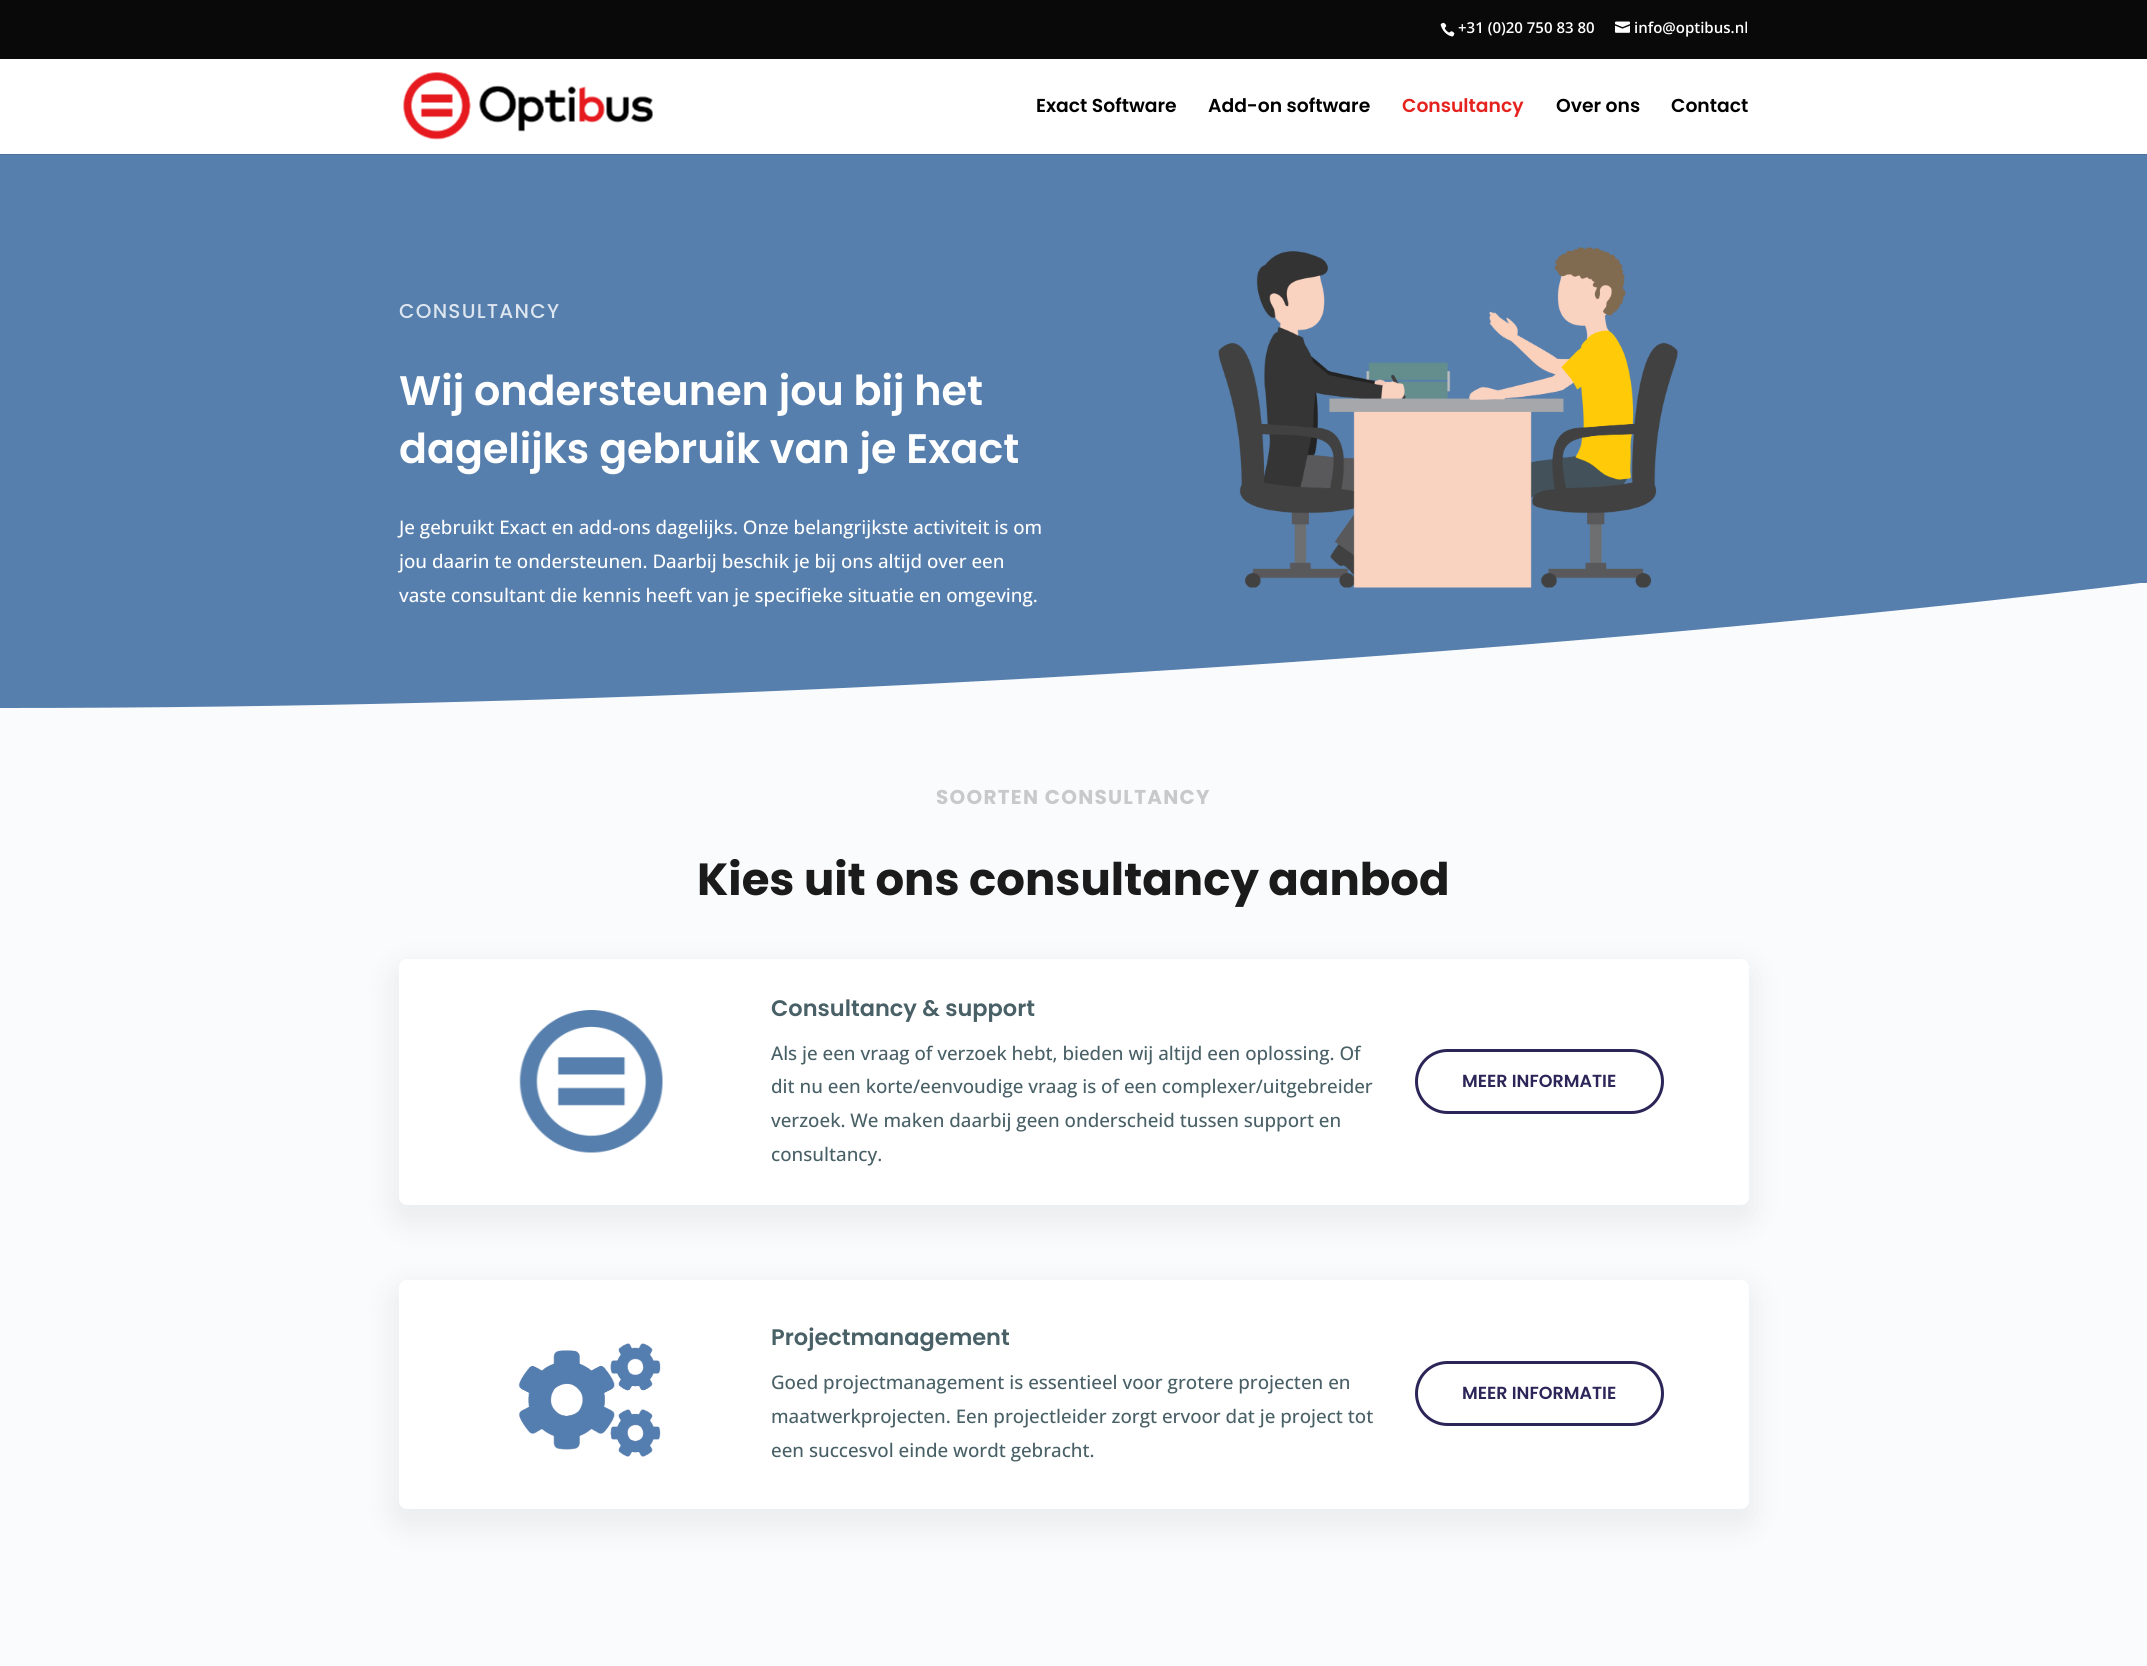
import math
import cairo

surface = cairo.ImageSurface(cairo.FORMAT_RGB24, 2147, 1666)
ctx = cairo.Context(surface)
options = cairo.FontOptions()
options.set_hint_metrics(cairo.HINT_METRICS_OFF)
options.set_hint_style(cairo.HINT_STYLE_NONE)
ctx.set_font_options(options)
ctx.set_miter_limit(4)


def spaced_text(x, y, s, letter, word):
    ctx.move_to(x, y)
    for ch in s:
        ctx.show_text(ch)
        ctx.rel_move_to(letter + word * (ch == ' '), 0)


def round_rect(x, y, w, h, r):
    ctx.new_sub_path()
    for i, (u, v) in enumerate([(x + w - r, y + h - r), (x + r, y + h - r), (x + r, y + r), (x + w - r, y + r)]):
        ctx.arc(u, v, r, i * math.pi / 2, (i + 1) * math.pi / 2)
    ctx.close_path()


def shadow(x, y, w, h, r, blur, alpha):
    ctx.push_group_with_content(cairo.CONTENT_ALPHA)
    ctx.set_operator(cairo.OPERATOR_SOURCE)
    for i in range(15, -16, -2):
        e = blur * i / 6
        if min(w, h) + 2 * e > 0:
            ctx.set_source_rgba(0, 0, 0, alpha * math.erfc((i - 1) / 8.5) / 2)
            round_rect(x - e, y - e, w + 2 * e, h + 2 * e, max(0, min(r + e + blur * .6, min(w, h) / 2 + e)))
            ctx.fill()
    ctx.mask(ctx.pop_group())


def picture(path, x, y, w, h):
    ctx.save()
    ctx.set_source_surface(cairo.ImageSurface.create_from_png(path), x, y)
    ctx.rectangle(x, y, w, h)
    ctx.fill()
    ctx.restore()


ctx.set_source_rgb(0.337, 0.498, 0.678)
ctx.paint()
ctx.set_source_rgb(0.039, 0.039, 0.039)
ctx.rectangle(0, 0, 2147, 59)
ctx.fill()
picture("img1.png", 1440, 22, 15, 15)
ctx.select_font_face("Open Sans SemiBold")
ctx.set_font_size(15)
ctx.set_source_rgb(1, 1, 1)
ctx.move_to(1458, 33)
ctx.show_text("+31 (0)20 750 83 80")
picture("img2.png", 1615, 21, 15, 12)
ctx.move_to(1634, 33)
ctx.show_text("info@optibus.nl")
ctx.set_source_rgb(0.302, 0.447, 0.612)
ctx.new_path()
ctx.move_to(0, 154)
ctx.line_to(0, 155)
ctx.line_to(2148, 155)
ctx.line_to(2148, 60)
ctx.line_to(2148, 154)
ctx.close_path()
ctx.fill()
ctx.set_source_rgb(1, 1, 1)
ctx.rectangle(0, 59, 2147, 95)
ctx.fill()
picture("img3.png", 403, 72, 250, 68)
ctx.select_font_face("Poppins SemiBold")
ctx.set_font_size(18.75)
ctx.set_source_rgb(0, 0, 0)
ctx.move_to(1036, 112)
ctx.show_text("Exact Software")
ctx.move_to(1208, 112)
ctx.show_text("Add-on software")
ctx.set_source_rgb(0.898, 0.137, 0.118)
ctx.move_to(1402, 112)
ctx.show_text("Consultancy")
ctx.set_source_rgb(0, 0, 0)
ctx.move_to(1556, 112)
ctx.show_text("Over ons")
ctx.move_to(1671, 112)
ctx.show_text("Contact")
ctx.select_font_face("Poppins Medium")
ctx.set_font_size(20)
ctx.set_source_rgb(0.867, 0.898, 0.937)
spaced_text(399, 318, "CONSULTANCY", 1.25, 0)
ctx.select_font_face("Poppins SemiBold")
ctx.set_font_size(41.25)
ctx.set_source_rgb(1, 1, 1)
ctx.move_to(399, 405)
ctx.show_text("Wij ondersteunen jou bij het")
ctx.move_to(399, 463)
ctx.show_text("dagelijks gebruik van je Exact")
ctx.select_font_face("Open Sans Medium")
ctx.set_font_size(18.75)
ctx.move_to(399, 534)
ctx.show_text("Je gebruikt Exact en add-ons dagelijks. Onze belangrijkste activiteit is om")
ctx.move_to(399, 568)
ctx.show_text("jou daarin te ondersteunen. Daarbij beschik je bij ons altijd over een")
ctx.save()
ctx.rectangle(0, 583, 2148, 125)
ctx.clip()
ctx.set_source_rgb(0.98, 0.984, 0.988)
ctx.new_path()
ctx.move_to(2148, 708)
ctx.line_to(0, 708)
ctx.curve_to(1186, 708, 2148, 582, 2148, 582)
ctx.close_path()
ctx.fill()
ctx.restore()
ctx.move_to(399, 602)
ctx.show_text("vaste consultant die kennis heeft van je specifieke situatie en omgeving.")
picture("img4.png", 1218, 247, 460, 341)
ctx.set_source_rgb(0.98, 0.984, 0.988)
ctx.rectangle(0, 708, 2147, 958)
ctx.fill()
ctx.select_font_face("Poppins", cairo.FONT_SLANT_NORMAL, cairo.FONT_WEIGHT_BOLD)
ctx.set_font_size(20)
ctx.set_source_rgb(0.784, 0.788, 0.792)
spaced_text(936, 804, "SOORTEN CONSULTANCY", 1.25, 0)
ctx.set_font_size(45)
ctx.set_source_rgb(0.106, 0.106, 0.106)
ctx.move_to(697, 895)
ctx.show_text("Kies uit ons consultancy aanbod")
ctx.set_source_rgb(0, 0, 0)
shadow(391, 964, 1365, 261, 15, 15, 0.06)
ctx.set_source_rgb(1, 1, 1)
round_rect(399, 959, 1350, 246, 8)
ctx.fill()
picture("img5.png", 519, 1010, 144, 143)
ctx.select_font_face("Poppins SemiBold")
ctx.set_font_size(22.5)
ctx.set_source_rgb(0.282, 0.376, 0.4)
ctx.move_to(771, 1016)
ctx.show_text("Consultancy & support")
ctx.select_font_face("Open Sans Medium")
ctx.set_font_size(18.75)
ctx.move_to(771, 1060)
ctx.show_text("Als je een vraag of verzoek hebt, bieden wij altijd een oplossing. Of")
ctx.move_to(771, 1093)
ctx.show_text("dit nu een korte/eenvoudige vraag is of een complexer/uitgebreider")
ctx.move_to(771, 1127)
ctx.show_text("verzoek. We maken daarbij geen onderscheid tussen support en")
ctx.move_to(771, 1161)
ctx.show_text("consultancy.")
round_rect(1416.5, 1050.5, 246, 62, 31)
ctx.set_source_rgb(0.169, 0.145, 0.345)
ctx.set_line_width(3)
ctx.stroke()
ctx.select_font_face("Poppins SemiBold")
ctx.set_font_size(17.5)
ctx.move_to(1462, 1087)
ctx.show_text("MEER INFORMATIE")
ctx.set_source_rgb(0, 0, 0)
shadow(391, 1285, 1365, 244, 15, 15, 0.06)
ctx.set_source_rgb(1, 1, 1)
round_rect(399, 1280, 1350, 229, 8)
ctx.fill()
picture("img6.png", 518, 1343, 143, 114)
ctx.set_font_size(22.5)
ctx.set_source_rgb(0.282, 0.376, 0.4)
ctx.move_to(771, 1345)
ctx.show_text("Projectmanagement")
ctx.select_font_face("Open Sans Medium")
ctx.set_font_size(18.75)
ctx.move_to(771, 1389)
ctx.show_text("Goed projectmanagement is essentieel voor grotere projecten en")
ctx.move_to(771, 1423)
ctx.show_text("maatwerkprojecten. Een projectleider zorgt ervoor dat je project tot")
ctx.move_to(771, 1457)
ctx.show_text("een succesvol einde wordt gebracht.")
round_rect(1416.5, 1362.5, 246, 62, 31)
ctx.set_source_rgb(0.169, 0.145, 0.345)
ctx.stroke()
ctx.select_font_face("Poppins SemiBold")
ctx.set_font_size(17.5)
ctx.move_to(1462, 1399)
ctx.show_text("MEER INFORMATIE")
surface.write_to_png("page.png")
